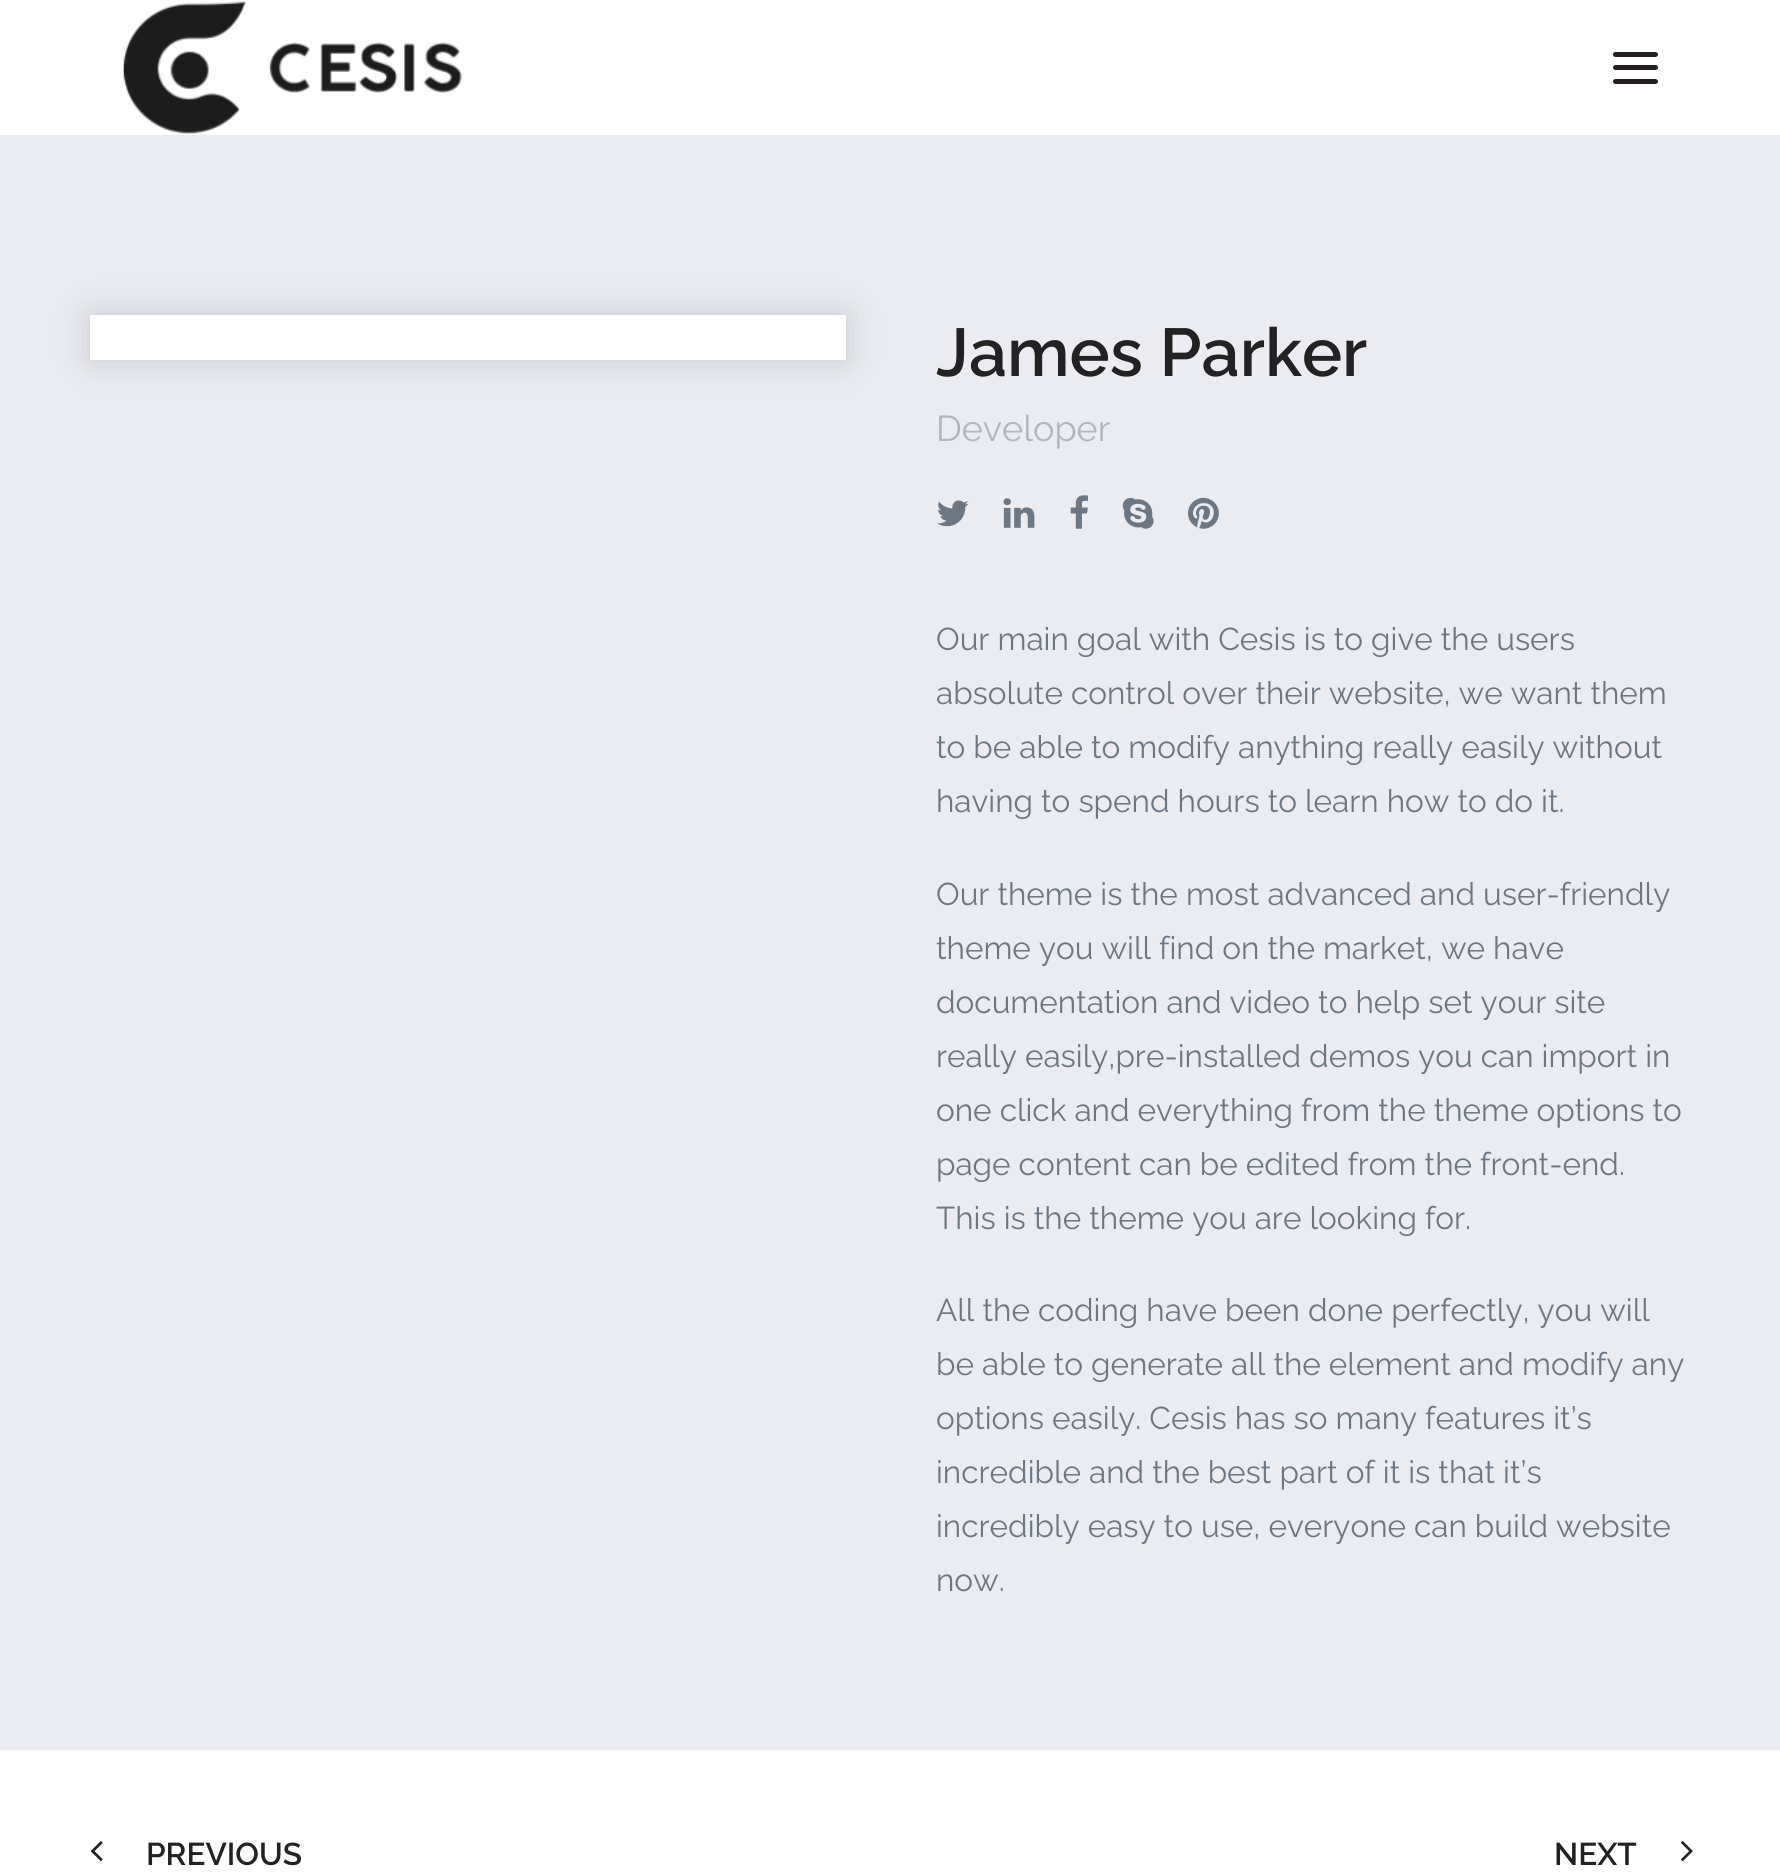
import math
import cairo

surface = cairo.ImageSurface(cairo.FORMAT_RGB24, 1780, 1876)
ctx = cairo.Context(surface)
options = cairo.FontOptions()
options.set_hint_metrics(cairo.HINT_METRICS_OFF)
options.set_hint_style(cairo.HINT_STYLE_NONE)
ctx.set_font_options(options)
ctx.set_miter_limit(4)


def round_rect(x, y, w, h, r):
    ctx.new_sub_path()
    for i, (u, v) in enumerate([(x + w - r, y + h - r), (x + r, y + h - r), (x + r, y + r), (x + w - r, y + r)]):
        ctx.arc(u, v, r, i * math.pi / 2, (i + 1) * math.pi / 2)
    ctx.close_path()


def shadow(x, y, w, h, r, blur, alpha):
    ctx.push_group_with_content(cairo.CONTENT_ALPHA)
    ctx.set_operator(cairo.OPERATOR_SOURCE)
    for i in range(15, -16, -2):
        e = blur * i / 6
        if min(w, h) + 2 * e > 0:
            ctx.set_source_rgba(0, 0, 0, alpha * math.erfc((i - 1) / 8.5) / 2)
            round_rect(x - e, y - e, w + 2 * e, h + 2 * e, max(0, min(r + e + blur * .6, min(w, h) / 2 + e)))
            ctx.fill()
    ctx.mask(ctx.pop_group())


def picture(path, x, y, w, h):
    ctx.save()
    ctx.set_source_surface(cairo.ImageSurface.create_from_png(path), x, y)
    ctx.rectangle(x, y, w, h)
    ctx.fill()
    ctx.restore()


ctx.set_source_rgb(1, 1, 1)
ctx.paint()
picture("img1.png", 123, 1, 339, 133)
ctx.set_source_rgb(0.137, 0.122, 0.125)
round_rect(1613, 65, 45, 5, 2.5)
ctx.fill()
round_rect(1613, 52, 45, 5, 2.5)
ctx.fill()
round_rect(1613, 79, 45, 5, 2.5)
ctx.fill()
ctx.set_source_rgb(0.918, 0.925, 0.945)
ctx.rectangle(0, 135, 1780, 1613)
ctx.fill()
ctx.set_source_rgb(0.18, 0.184, 0.224)
shadow(90, 315, 756, 45, 0, 17, 0.19)
ctx.set_source_rgb(1, 1, 1)
ctx.rectangle(90, 315, 756, 45)
ctx.fill()
ctx.select_font_face("Raleway SemiBold")
ctx.set_font_size(67.5)
ctx.set_source_rgb(0.133, 0.133, 0.133)
ctx.move_to(936, 376)
ctx.show_text("James Parker")
ctx.select_font_face("Raleway")
ctx.set_font_size(36)
ctx.set_source_rgb(0.682, 0.718, 0.757)
ctx.move_to(936, 441)
ctx.show_text("Developer")
picture("img2.png", 937, 500, 32, 27)
picture("img3.png", 1003, 498, 32, 30)
picture("img4.png", 1070, 495, 18, 34)
picture("img5.png", 1122, 497, 32, 32)
picture("img6.png", 1188, 497, 31, 32)
ctx.set_font_size(31.5)
ctx.set_source_rgb(0.427, 0.467, 0.514)
ctx.move_to(936, 650)
ctx.show_text("Our main goal with Cesis is to give the users")
ctx.move_to(936, 704)
ctx.show_text("absolute control over their website, we want them")
ctx.move_to(936, 758)
ctx.show_text("to be able to modify anything really easily without")
ctx.move_to(936, 812)
ctx.show_text("having to spend hours to learn how to do it.")
ctx.move_to(936, 905)
ctx.show_text("Our theme is the most advanced and user-friendly")
ctx.move_to(936, 959)
ctx.show_text("theme you will find on the market, we have")
ctx.move_to(936, 1013)
ctx.show_text("documentation and video to help set your site")
ctx.move_to(936, 1067)
ctx.show_text("really easily,pre-installed demos you can import in")
ctx.move_to(936, 1121)
ctx.show_text("one click and everything from the theme options to")
ctx.move_to(936, 1175)
ctx.show_text("page content can be edited from the front-end.")
ctx.move_to(936, 1229)
ctx.show_text("This is the theme you are looking for.")
ctx.move_to(936, 1321)
ctx.show_text("All the coding have been done perfectly, you will")
ctx.move_to(936, 1375)
ctx.show_text("be able to generate all the element and modify any")
ctx.move_to(936, 1429)
ctx.show_text("options easily. Cesis has so many features it’s")
ctx.move_to(936, 1483)
ctx.show_text("incredible and the best part of it is that it’s")
ctx.move_to(936, 1537)
ctx.show_text("incredibly easy to use, everyone can build website")
ctx.move_to(936, 1591)
ctx.show_text("now.")
ctx.set_source_rgb(0.925, 0.925, 0.925)
ctx.rectangle(0, 1748, 1780, 2)
ctx.fill()
picture("img7.png", 90, 1841, 13, 21)
ctx.select_font_face("Raleway SemiBold")
ctx.set_source_rgb(0.133, 0.133, 0.133)
ctx.move_to(146, 1865)
ctx.show_text("PREVIOUS")
ctx.move_to(1554, 1865)
ctx.show_text("NEXT")
picture("img8.png", 1681, 1841, 12, 21)
surface.write_to_png("page.png")
